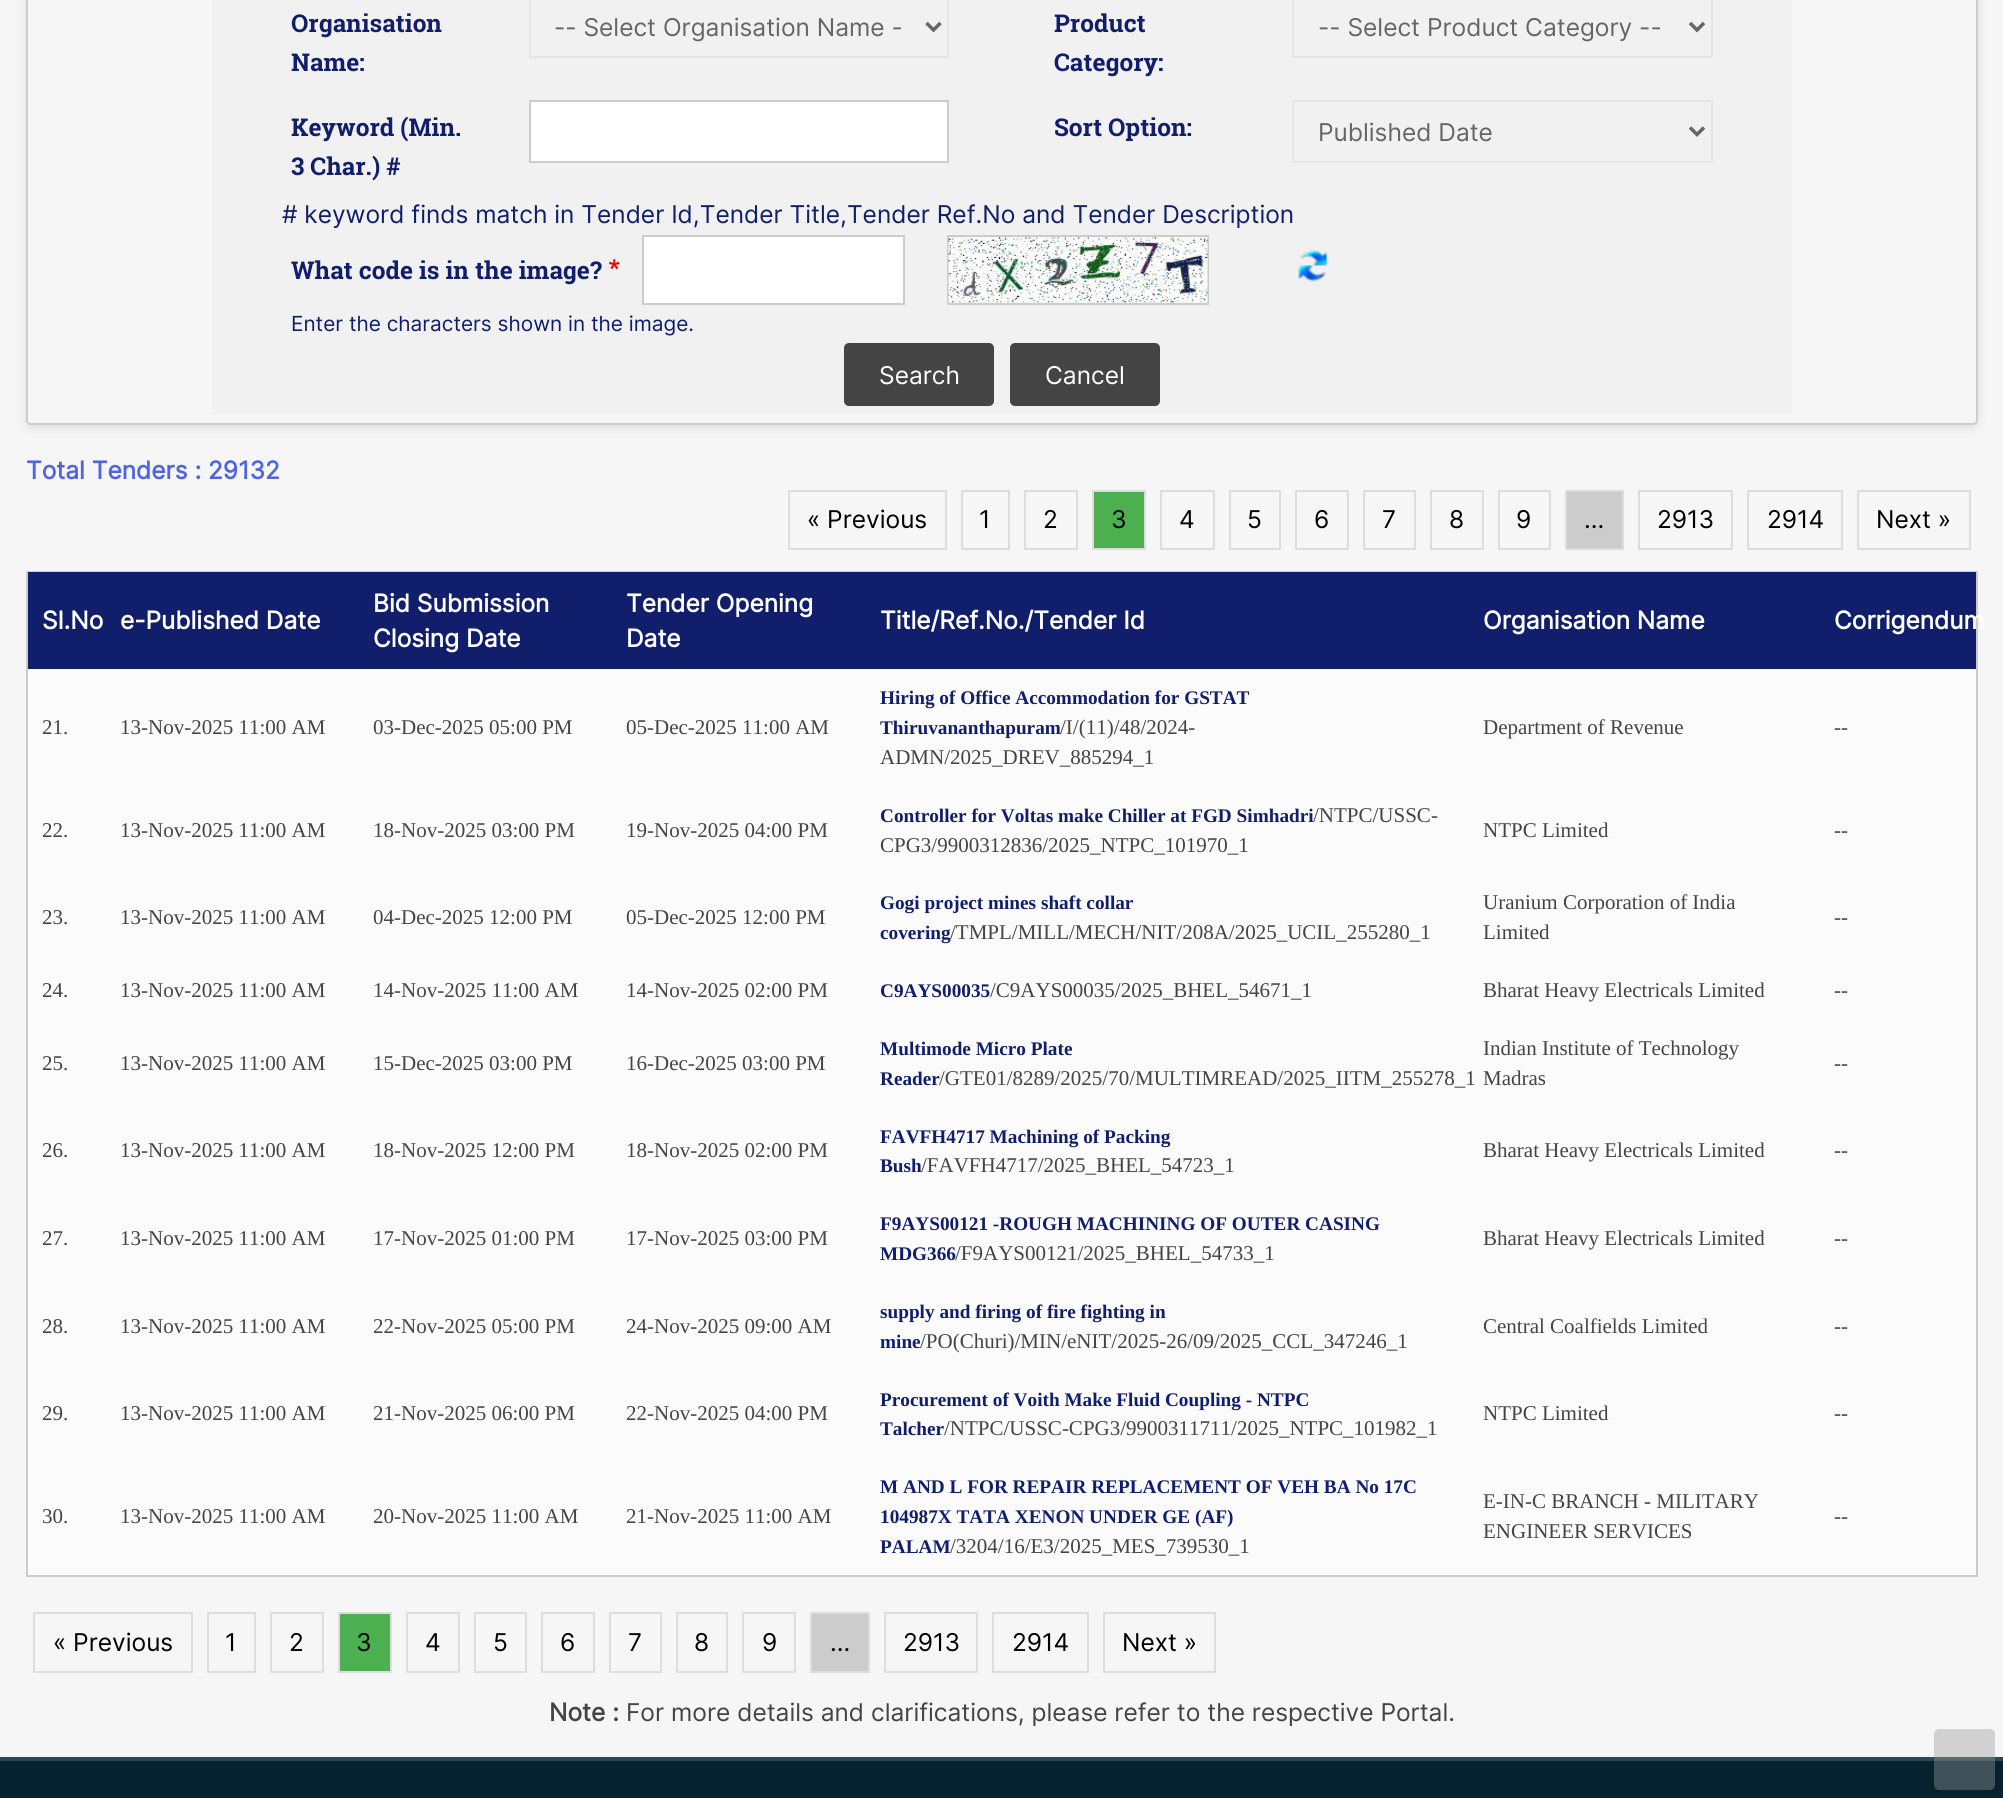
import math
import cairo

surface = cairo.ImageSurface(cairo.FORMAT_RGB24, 2003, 1798)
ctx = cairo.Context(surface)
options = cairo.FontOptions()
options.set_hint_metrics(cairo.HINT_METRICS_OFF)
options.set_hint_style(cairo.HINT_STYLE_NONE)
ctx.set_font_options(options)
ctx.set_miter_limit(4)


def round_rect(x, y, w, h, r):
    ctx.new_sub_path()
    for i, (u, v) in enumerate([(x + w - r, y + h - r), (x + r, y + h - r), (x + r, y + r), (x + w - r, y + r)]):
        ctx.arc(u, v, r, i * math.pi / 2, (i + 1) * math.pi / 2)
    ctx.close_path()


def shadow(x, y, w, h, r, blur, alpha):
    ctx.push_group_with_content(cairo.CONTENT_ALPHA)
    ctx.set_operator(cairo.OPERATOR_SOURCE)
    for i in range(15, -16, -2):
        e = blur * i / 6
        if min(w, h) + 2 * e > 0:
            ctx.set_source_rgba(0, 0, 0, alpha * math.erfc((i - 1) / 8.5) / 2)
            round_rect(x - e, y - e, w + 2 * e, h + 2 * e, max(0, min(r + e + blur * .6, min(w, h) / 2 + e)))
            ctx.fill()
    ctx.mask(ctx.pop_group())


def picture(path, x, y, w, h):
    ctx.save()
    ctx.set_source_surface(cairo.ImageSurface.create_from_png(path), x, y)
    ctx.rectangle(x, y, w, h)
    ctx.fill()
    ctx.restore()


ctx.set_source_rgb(0.961, 0.961, 0.961)
ctx.paint()
ctx.set_source_rgb(0.8, 0.8, 0.8)
shadow(25, -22, 1954, 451, 7, 5, 0.5)
ctx.set_source_rgb(0.961, 0.961, 0.961)
round_rect(27, -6, 1950, 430, 4)
ctx.fill_preserve()
ctx.set_source_rgb(0.8, 0.8, 0.8)
ctx.stroke()
ctx.set_source_rgb(0.945, 0.945, 0.945)
ctx.rectangle(212, 0, 1580, 415)
ctx.fill()
ctx.select_font_face("Roboto Slab", cairo.FONT_SLANT_NORMAL, cairo.FONT_WEIGHT_BOLD)
ctx.set_font_size(24.5)
ctx.set_source_rgb(0.067, 0.118, 0.424)
ctx.move_to(291, 32)
ctx.show_text("Organisation")
ctx.move_to(291, 71)
ctx.show_text("Name:")
ctx.rectangle(530, -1, 418, 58)
ctx.set_source_rgb(0.898, 0.898, 0.898)
ctx.stroke()
ctx.new_path()
ctx.move_to(926.5, 23)
ctx.line_to(933.5, 30)
ctx.line_to(940.5, 23)
ctx.set_source_rgb(0.4, 0.4, 0.4)
ctx.set_line_width(3.5)
ctx.stroke()
ctx.select_font_face("Inter")
ctx.move_to(554, 36)
ctx.show_text("-- Select Organisation Name -")
ctx.select_font_face("Roboto Slab", cairo.FONT_SLANT_NORMAL, cairo.FONT_WEIGHT_BOLD)
ctx.set_source_rgb(0.067, 0.118, 0.424)
ctx.move_to(1054, 32)
ctx.show_text("Product")
ctx.move_to(1054, 71)
ctx.show_text("Category:")
ctx.rectangle(1293, -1, 419, 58)
ctx.set_source_rgb(0.898, 0.898, 0.898)
ctx.set_line_width(2)
ctx.stroke()
ctx.new_path()
ctx.move_to(1690, 23)
ctx.line_to(1697, 30)
ctx.line_to(1704, 23)
ctx.set_source_rgb(0.4, 0.4, 0.4)
ctx.set_line_width(3.5)
ctx.stroke()
ctx.select_font_face("Inter")
ctx.move_to(1318, 36)
ctx.show_text("-- Select Product Category --")
ctx.select_font_face("Roboto Slab", cairo.FONT_SLANT_NORMAL, cairo.FONT_WEIGHT_BOLD)
ctx.set_source_rgb(0.067, 0.118, 0.424)
ctx.move_to(291, 136)
ctx.show_text("Keyword (Min.")
ctx.move_to(291, 175)
ctx.show_text("3 Char.) #")
ctx.set_source_rgb(1, 1, 1)
ctx.rectangle(530, 101, 418, 61)
ctx.fill_preserve()
ctx.set_source_rgb(0.8, 0.8, 0.8)
ctx.set_line_width(2)
ctx.stroke()
ctx.set_source_rgb(0.067, 0.118, 0.424)
ctx.move_to(1054, 136)
ctx.show_text("Sort Option:")
ctx.rectangle(1293, 101, 419, 61)
ctx.set_source_rgb(0.898, 0.898, 0.898)
ctx.stroke()
ctx.new_path()
ctx.move_to(1690, 127.5)
ctx.line_to(1697, 134.5)
ctx.line_to(1704, 127.5)
ctx.set_source_rgb(0.4, 0.4, 0.4)
ctx.set_line_width(3.5)
ctx.stroke()
ctx.select_font_face("Inter")
ctx.move_to(1318, 141)
ctx.show_text("Published Date")
ctx.set_source_rgb(0.067, 0.118, 0.424)
ctx.move_to(282, 223)
ctx.show_text("# keyword finds match in Tender Id,Tender Title,Tender Ref.No and Tender Description")
ctx.select_font_face("Roboto Slab", cairo.FONT_SLANT_NORMAL, cairo.FONT_WEIGHT_BOLD)
ctx.move_to(291, 279)
ctx.show_text("What code is in the image?")
picture("img1.png", 609, 259, 11, 11)
ctx.set_source_rgb(1, 1, 1)
ctx.rectangle(643, 236, 261, 68)
ctx.fill_preserve()
ctx.set_source_rgb(0.8, 0.8, 0.8)
ctx.set_line_width(2)
ctx.stroke()
ctx.select_font_face("Inter")
ctx.set_font_size(20.8)
ctx.set_source_rgb(0.067, 0.118, 0.424)
ctx.move_to(291, 331)
ctx.show_text("Enter the characters shown in the image.")
ctx.rectangle(948, 236, 260, 68)
ctx.set_source_rgb(0.8, 0.8, 0.8)
ctx.stroke()
picture("img2.png", 948, 237, 260, 66)
picture("img3.png", 1298, 249, 31, 33)
ctx.set_source_rgb(0.267, 0.267, 0.267)
round_rect(844, 343, 150, 63, 5)
ctx.fill()
ctx.set_font_size(24.5)
ctx.set_source_rgb(1, 1, 1)
ctx.move_to(879, 384)
ctx.show_text("Search")
ctx.set_source_rgb(0.267, 0.267, 0.267)
round_rect(1010, 343, 150, 63, 5)
ctx.fill()
ctx.set_source_rgb(1, 1, 1)
ctx.move_to(1045, 384)
ctx.show_text("Cancel")
ctx.select_font_face("Inter", cairo.FONT_SLANT_NORMAL, cairo.FONT_WEIGHT_BOLD)
ctx.set_source_rgb(0.31, 0.392, 0.886)
ctx.move_to(26, 479)
ctx.show_text("Total Tenders : 29132")
ctx.rectangle(789, 491, 157, 58)
ctx.set_source_rgb(0.867, 0.867, 0.867)
ctx.stroke()
ctx.select_font_face("Inter")
ctx.set_source_rgb(0, 0, 0)
ctx.move_to(807, 528)
ctx.show_text("« Previous")
ctx.rectangle(962, 491, 47, 58)
ctx.set_source_rgb(0.867, 0.867, 0.867)
ctx.stroke()
ctx.set_source_rgb(0, 0, 0)
ctx.move_to(979, 528)
ctx.show_text("1")
ctx.rectangle(1025, 491, 52, 58)
ctx.set_source_rgb(0.867, 0.867, 0.867)
ctx.stroke()
ctx.set_source_rgb(0, 0, 0)
ctx.move_to(1043, 528)
ctx.show_text("2")
ctx.set_source_rgb(0.298, 0.686, 0.314)
ctx.rectangle(1093, 491, 52, 58)
ctx.fill_preserve()
ctx.set_source_rgb(0.867, 0.867, 0.867)
ctx.stroke()
ctx.set_source_rgb(0, 0, 0)
ctx.move_to(1111, 528)
ctx.show_text("3")
ctx.rectangle(1161, 491, 53, 58)
ctx.set_source_rgb(0.867, 0.867, 0.867)
ctx.stroke()
ctx.set_source_rgb(0, 0, 0)
ctx.move_to(1179, 528)
ctx.show_text("4")
ctx.rectangle(1230, 491, 50, 58)
ctx.set_source_rgb(0.867, 0.867, 0.867)
ctx.stroke()
ctx.set_source_rgb(0, 0, 0)
ctx.move_to(1247, 528)
ctx.show_text("5")
ctx.rectangle(1296, 491, 52, 58)
ctx.set_source_rgb(0.867, 0.867, 0.867)
ctx.stroke()
ctx.set_source_rgb(0, 0, 0)
ctx.move_to(1314, 528)
ctx.show_text("6")
ctx.rectangle(1364, 491, 51, 58)
ctx.set_source_rgb(0.867, 0.867, 0.867)
ctx.stroke()
ctx.set_source_rgb(0, 0, 0)
ctx.move_to(1382, 528)
ctx.show_text("7")
ctx.rectangle(1431, 491, 52, 58)
ctx.set_source_rgb(0.867, 0.867, 0.867)
ctx.stroke()
ctx.set_source_rgb(0, 0, 0)
ctx.move_to(1449, 528)
ctx.show_text("8")
ctx.rectangle(1499, 491, 51, 58)
ctx.set_source_rgb(0.867, 0.867, 0.867)
ctx.stroke()
ctx.set_source_rgb(0, 0, 0)
ctx.move_to(1516, 528)
ctx.show_text("9")
ctx.set_source_rgb(0.8, 0.8, 0.8)
ctx.rectangle(1566, 491, 57, 58)
ctx.fill_preserve()
ctx.set_source_rgb(0.867, 0.867, 0.867)
ctx.stroke()
ctx.set_source_rgb(0, 0, 0)
ctx.move_to(1584, 528)
ctx.show_text("...")
ctx.rectangle(1639, 491, 93, 58)
ctx.set_source_rgb(0.867, 0.867, 0.867)
ctx.stroke()
ctx.set_source_rgb(0, 0, 0)
ctx.move_to(1657, 528)
ctx.show_text("2913")
ctx.rectangle(1748, 491, 94, 58)
ctx.set_source_rgb(0.867, 0.867, 0.867)
ctx.stroke()
ctx.set_source_rgb(0, 0, 0)
ctx.move_to(1767, 528)
ctx.show_text("2914")
ctx.rectangle(1858, 491, 112, 58)
ctx.set_source_rgb(0.867, 0.867, 0.867)
ctx.stroke()
ctx.set_source_rgb(0, 0, 0)
ctx.move_to(1876, 528)
ctx.show_text("Next »")
ctx.rectangle(27, 572, 1950, 1004)
ctx.set_source_rgb(0.8, 0.8, 0.8)
ctx.stroke()
ctx.set_source_rgb(0.067, 0.118, 0.424)
ctx.rectangle(28, 572, 1948, 97)
ctx.fill()
ctx.select_font_face("Inter", cairo.FONT_SLANT_NORMAL, cairo.FONT_WEIGHT_BOLD)
ctx.set_source_rgb(1, 1, 1)
ctx.move_to(42, 629)
ctx.show_text("Sl.No")
ctx.move_to(120, 629)
ctx.show_text("e-Published Date")
ctx.move_to(373, 612)
ctx.show_text("Bid Submission")
ctx.move_to(373, 647)
ctx.show_text("Closing Date")
ctx.move_to(626, 612)
ctx.show_text("Tender Opening")
ctx.move_to(626, 647)
ctx.show_text("Date")
ctx.move_to(880, 629)
ctx.show_text("Title/Ref.No./Tender Id")
ctx.move_to(1483, 629)
ctx.show_text("Organisation Name")
ctx.move_to(1834, 629)
ctx.show_text("Corrigendum")
ctx.set_source_rgb(0.984, 0.984, 0.984)
ctx.rectangle(28, 669, 1948, 119)
ctx.fill()
ctx.select_font_face("Liberation Serif")
ctx.set_font_size(21)
ctx.set_source_rgb(0.267, 0.267, 0.267)
ctx.move_to(42, 734)
ctx.show_text("21.")
ctx.move_to(120, 734)
ctx.show_text("13-Nov-2025 11:00 AM")
ctx.move_to(373, 734)
ctx.show_text("03-Dec-2025 05:00 PM")
ctx.move_to(626, 734)
ctx.show_text("05-Dec-2025 11:00 AM")
ctx.select_font_face("Liberation Serif", cairo.FONT_SLANT_NORMAL, cairo.FONT_WEIGHT_BOLD)
ctx.set_font_size(19.25)
ctx.set_source_rgb(0.067, 0.118, 0.424)
ctx.move_to(880, 704)
ctx.show_text("Hiring of Office Accommodation for GSTAT")
ctx.move_to(880, 734)
ctx.show_text("Thiruvananthapuram")
ctx.select_font_face("Liberation Serif")
ctx.set_font_size(21)
ctx.set_source_rgb(0.267, 0.267, 0.267)
ctx.move_to(1060, 734)
ctx.show_text("/I/(11)/48/2024-")
ctx.move_to(880, 764)
ctx.show_text("ADMN/2025_DREV_885294_1")
ctx.move_to(1483, 734)
ctx.show_text("Department of Revenue")
ctx.move_to(1834, 734)
ctx.show_text("--")
ctx.set_source_rgb(0.984, 0.984, 0.984)
ctx.rectangle(28, 788, 1948, 87)
ctx.fill()
ctx.set_source_rgb(0.267, 0.267, 0.267)
ctx.move_to(42, 837)
ctx.show_text("22.")
ctx.move_to(120, 837)
ctx.show_text("13-Nov-2025 11:00 AM")
ctx.move_to(373, 837)
ctx.show_text("18-Nov-2025 03:00 PM")
ctx.move_to(626, 837)
ctx.show_text("19-Nov-2025 04:00 PM")
ctx.select_font_face("Liberation Serif", cairo.FONT_SLANT_NORMAL, cairo.FONT_WEIGHT_BOLD)
ctx.set_font_size(19.25)
ctx.set_source_rgb(0.067, 0.118, 0.424)
ctx.move_to(880, 822)
ctx.show_text("Controller for Voltas make Chiller at FGD Simhadri")
ctx.select_font_face("Liberation Serif")
ctx.set_font_size(21)
ctx.set_source_rgb(0.267, 0.267, 0.267)
ctx.move_to(1313, 822)
ctx.show_text("/NTPC/USSC-")
ctx.move_to(880, 852)
ctx.show_text("CPG3/9900312836/2025_NTPC_101970_1")
ctx.move_to(1483, 837)
ctx.show_text("NTPC Limited")
ctx.move_to(1834, 837)
ctx.show_text("--")
ctx.set_source_rgb(0.984, 0.984, 0.984)
ctx.rectangle(28, 875, 1948, 88)
ctx.fill()
ctx.set_source_rgb(0.267, 0.267, 0.267)
ctx.move_to(42, 924)
ctx.show_text("23.")
ctx.move_to(120, 924)
ctx.show_text("13-Nov-2025 11:00 AM")
ctx.move_to(373, 924)
ctx.show_text("04-Dec-2025 12:00 PM")
ctx.move_to(626, 924)
ctx.show_text("05-Dec-2025 12:00 PM")
ctx.select_font_face("Liberation Serif", cairo.FONT_SLANT_NORMAL, cairo.FONT_WEIGHT_BOLD)
ctx.set_font_size(19.25)
ctx.set_source_rgb(0.067, 0.118, 0.424)
ctx.move_to(880, 909)
ctx.show_text("Gogi project mines shaft collar")
ctx.move_to(880, 939)
ctx.show_text("covering")
ctx.select_font_face("Liberation Serif")
ctx.set_font_size(21)
ctx.set_source_rgb(0.267, 0.267, 0.267)
ctx.move_to(950, 939)
ctx.show_text("/TMPL/MILL/MECH/NIT/208A/2025_UCIL_255280_1")
ctx.move_to(1483, 909)
ctx.show_text("Uranium Corporation of India")
ctx.move_to(1483, 939)
ctx.show_text("Limited")
ctx.move_to(1834, 924)
ctx.show_text("--")
ctx.set_source_rgb(0.984, 0.984, 0.984)
ctx.rectangle(28, 963, 1948, 57)
ctx.fill()
ctx.set_source_rgb(0.267, 0.267, 0.267)
ctx.move_to(42, 997)
ctx.show_text("24.")
ctx.move_to(120, 997)
ctx.show_text("13-Nov-2025 11:00 AM")
ctx.move_to(373, 997)
ctx.show_text("14-Nov-2025 11:00 AM")
ctx.move_to(626, 997)
ctx.show_text("14-Nov-2025 02:00 PM")
ctx.select_font_face("Liberation Serif", cairo.FONT_SLANT_NORMAL, cairo.FONT_WEIGHT_BOLD)
ctx.set_font_size(19.25)
ctx.set_source_rgb(0.067, 0.118, 0.424)
ctx.move_to(880, 997)
ctx.show_text("C9AYS00035")
ctx.select_font_face("Liberation Serif")
ctx.set_font_size(21)
ctx.set_source_rgb(0.267, 0.267, 0.267)
ctx.move_to(990, 997)
ctx.show_text("/C9AYS00035/2025_BHEL_54671_1")
ctx.move_to(1483, 997)
ctx.show_text("Bharat Heavy Electricals Limited")
ctx.move_to(1834, 997)
ctx.show_text("--")
ctx.set_source_rgb(0.984, 0.984, 0.984)
ctx.rectangle(28, 1020, 1948, 88)
ctx.fill()
ctx.set_source_rgb(0.267, 0.267, 0.267)
ctx.move_to(42, 1070)
ctx.show_text("25.")
ctx.move_to(120, 1070)
ctx.show_text("13-Nov-2025 11:00 AM")
ctx.move_to(373, 1070)
ctx.show_text("15-Dec-2025 03:00 PM")
ctx.move_to(626, 1070)
ctx.show_text("16-Dec-2025 03:00 PM")
ctx.select_font_face("Liberation Serif", cairo.FONT_SLANT_NORMAL, cairo.FONT_WEIGHT_BOLD)
ctx.set_font_size(19.25)
ctx.set_source_rgb(0.067, 0.118, 0.424)
ctx.move_to(880, 1055)
ctx.show_text("Multimode Micro Plate")
ctx.move_to(880, 1085)
ctx.show_text("Reader")
ctx.select_font_face("Liberation Serif")
ctx.set_font_size(21)
ctx.set_source_rgb(0.267, 0.267, 0.267)
ctx.move_to(939, 1085)
ctx.show_text("/GTE01/8289/2025/70/MULTIMREAD/2025_IITM_255278_1")
ctx.move_to(1483, 1055)
ctx.show_text("Indian Institute of Technology")
ctx.move_to(1483, 1085)
ctx.show_text("Madras")
ctx.move_to(1834, 1070)
ctx.show_text("--")
ctx.set_source_rgb(0.984, 0.984, 0.984)
ctx.rectangle(28, 1108, 1948, 87)
ctx.fill()
ctx.set_source_rgb(0.267, 0.267, 0.267)
ctx.move_to(42, 1157)
ctx.show_text("26.")
ctx.move_to(120, 1157)
ctx.show_text("13-Nov-2025 11:00 AM")
ctx.move_to(373, 1157)
ctx.show_text("18-Nov-2025 12:00 PM")
ctx.move_to(626, 1157)
ctx.show_text("18-Nov-2025 02:00 PM")
ctx.select_font_face("Liberation Serif", cairo.FONT_SLANT_NORMAL, cairo.FONT_WEIGHT_BOLD)
ctx.set_font_size(19.25)
ctx.set_source_rgb(0.067, 0.118, 0.424)
ctx.move_to(880, 1143)
ctx.show_text("FAVFH4717 Machining of Packing")
ctx.move_to(880, 1172)
ctx.show_text("Bush")
ctx.select_font_face("Liberation Serif")
ctx.set_font_size(21)
ctx.set_source_rgb(0.267, 0.267, 0.267)
ctx.move_to(921, 1172)
ctx.show_text("/FAVFH4717/2025_BHEL_54723_1")
ctx.move_to(1483, 1157)
ctx.show_text("Bharat Heavy Electricals Limited")
ctx.move_to(1834, 1157)
ctx.show_text("--")
ctx.set_source_rgb(0.984, 0.984, 0.984)
ctx.rectangle(28, 1195, 1948, 88)
ctx.fill()
ctx.set_source_rgb(0.267, 0.267, 0.267)
ctx.move_to(42, 1245)
ctx.show_text("27.")
ctx.move_to(120, 1245)
ctx.show_text("13-Nov-2025 11:00 AM")
ctx.move_to(373, 1245)
ctx.show_text("17-Nov-2025 01:00 PM")
ctx.move_to(626, 1245)
ctx.show_text("17-Nov-2025 03:00 PM")
ctx.select_font_face("Liberation Serif", cairo.FONT_SLANT_NORMAL, cairo.FONT_WEIGHT_BOLD)
ctx.set_font_size(19.25)
ctx.set_source_rgb(0.067, 0.118, 0.424)
ctx.move_to(880, 1230)
ctx.show_text("F9AYS00121 -ROUGH MACHINING OF OUTER CASING")
ctx.move_to(880, 1260)
ctx.show_text("MDG366")
ctx.select_font_face("Liberation Serif")
ctx.set_font_size(21)
ctx.set_source_rgb(0.267, 0.267, 0.267)
ctx.move_to(955, 1260)
ctx.show_text("/F9AYS00121/2025_BHEL_54733_1")
ctx.move_to(1483, 1245)
ctx.show_text("Bharat Heavy Electricals Limited")
ctx.move_to(1834, 1245)
ctx.show_text("--")
ctx.set_source_rgb(0.984, 0.984, 0.984)
ctx.rectangle(28, 1283, 1948, 87)
ctx.fill()
ctx.set_source_rgb(0.267, 0.267, 0.267)
ctx.move_to(42, 1333)
ctx.show_text("28.")
ctx.move_to(120, 1333)
ctx.show_text("13-Nov-2025 11:00 AM")
ctx.move_to(373, 1333)
ctx.show_text("22-Nov-2025 05:00 PM")
ctx.move_to(626, 1333)
ctx.show_text("24-Nov-2025 09:00 AM")
ctx.select_font_face("Liberation Serif", cairo.FONT_SLANT_NORMAL, cairo.FONT_WEIGHT_BOLD)
ctx.set_font_size(19.25)
ctx.set_source_rgb(0.067, 0.118, 0.424)
ctx.move_to(880, 1318)
ctx.show_text("supply and firing of fire fighting in")
ctx.move_to(880, 1348)
ctx.show_text("mine")
ctx.select_font_face("Liberation Serif")
ctx.set_font_size(21)
ctx.set_source_rgb(0.267, 0.267, 0.267)
ctx.move_to(920, 1348)
ctx.show_text("/PO(Churi)/MIN/eNIT/2025-26/09/2025_CCL_347246_1")
ctx.move_to(1483, 1333)
ctx.show_text("Central Coalfields Limited")
ctx.move_to(1834, 1333)
ctx.show_text("--")
ctx.set_source_rgb(0.984, 0.984, 0.984)
ctx.rectangle(28, 1370, 1948, 88)
ctx.fill()
ctx.set_source_rgb(0.267, 0.267, 0.267)
ctx.move_to(42, 1420)
ctx.show_text("29.")
ctx.move_to(120, 1420)
ctx.show_text("13-Nov-2025 11:00 AM")
ctx.move_to(373, 1420)
ctx.show_text("21-Nov-2025 06:00 PM")
ctx.move_to(626, 1420)
ctx.show_text("22-Nov-2025 04:00 PM")
ctx.select_font_face("Liberation Serif", cairo.FONT_SLANT_NORMAL, cairo.FONT_WEIGHT_BOLD)
ctx.set_font_size(19.25)
ctx.set_source_rgb(0.067, 0.118, 0.424)
ctx.move_to(880, 1406)
ctx.show_text("Procurement of Voith Make Fluid Coupling - NTPC")
ctx.move_to(880, 1435)
ctx.show_text("Talcher")
ctx.select_font_face("Liberation Serif")
ctx.set_font_size(21)
ctx.set_source_rgb(0.267, 0.267, 0.267)
ctx.move_to(944, 1435)
ctx.show_text("/NTPC/USSC-CPG3/9900311711/2025_NTPC_101982_1")
ctx.move_to(1483, 1420)
ctx.show_text("NTPC Limited")
ctx.move_to(1834, 1420)
ctx.show_text("--")
ctx.set_source_rgb(0.984, 0.984, 0.984)
ctx.rectangle(28, 1458, 1948, 117)
ctx.fill()
ctx.set_source_rgb(0.267, 0.267, 0.267)
ctx.move_to(42, 1523)
ctx.show_text("30.")
ctx.move_to(120, 1523)
ctx.show_text("13-Nov-2025 11:00 AM")
ctx.move_to(373, 1523)
ctx.show_text("20-Nov-2025 11:00 AM")
ctx.move_to(626, 1523)
ctx.show_text("21-Nov-2025 11:00 AM")
ctx.select_font_face("Liberation Serif", cairo.FONT_SLANT_NORMAL, cairo.FONT_WEIGHT_BOLD)
ctx.set_font_size(19.25)
ctx.set_source_rgb(0.067, 0.118, 0.424)
ctx.move_to(880, 1493)
ctx.show_text("M AND L FOR REPAIR REPLACEMENT OF VEH BA No 17C")
ctx.move_to(880, 1523)
ctx.show_text("104987X TATA XENON UNDER GE (AF)")
ctx.move_to(880, 1553)
ctx.show_text("PALAM")
ctx.select_font_face("Liberation Serif")
ctx.set_font_size(21)
ctx.set_source_rgb(0.267, 0.267, 0.267)
ctx.move_to(950, 1553)
ctx.show_text("/3204/16/E3/2025_MES_739530_1")
ctx.move_to(1483, 1508)
ctx.show_text("E-IN-C BRANCH - MILITARY")
ctx.move_to(1483, 1538)
ctx.show_text("ENGINEER SERVICES")
ctx.move_to(1834, 1523)
ctx.show_text("--")
ctx.rectangle(34, 1613, 158, 59)
ctx.set_source_rgb(0.867, 0.867, 0.867)
ctx.stroke()
ctx.select_font_face("Inter")
ctx.set_font_size(24.5)
ctx.set_source_rgb(0, 0, 0)
ctx.move_to(53, 1651)
ctx.show_text("« Previous")
ctx.rectangle(208, 1613, 47, 59)
ctx.set_source_rgb(0.867, 0.867, 0.867)
ctx.stroke()
ctx.set_source_rgb(0, 0, 0)
ctx.move_to(225, 1651)
ctx.show_text("1")
ctx.rectangle(271, 1613, 52, 59)
ctx.set_source_rgb(0.867, 0.867, 0.867)
ctx.stroke()
ctx.set_source_rgb(0, 0, 0)
ctx.move_to(289, 1651)
ctx.show_text("2")
ctx.set_source_rgb(0.298, 0.686, 0.314)
ctx.rectangle(339, 1613, 52, 59)
ctx.fill_preserve()
ctx.set_source_rgb(0.867, 0.867, 0.867)
ctx.stroke()
ctx.set_source_rgb(0, 0, 0)
ctx.move_to(356, 1651)
ctx.show_text("3")
ctx.rectangle(407, 1613, 52, 59)
ctx.set_source_rgb(0.867, 0.867, 0.867)
ctx.stroke()
ctx.set_source_rgb(0, 0, 0)
ctx.move_to(425, 1651)
ctx.show_text("4")
ctx.rectangle(475, 1613, 51, 59)
ctx.set_source_rgb(0.867, 0.867, 0.867)
ctx.stroke()
ctx.set_source_rgb(0, 0, 0)
ctx.move_to(493, 1651)
ctx.show_text("5")
ctx.rectangle(542, 1613, 52, 59)
ctx.set_source_rgb(0.867, 0.867, 0.867)
ctx.stroke()
ctx.set_source_rgb(0, 0, 0)
ctx.move_to(560, 1651)
ctx.show_text("6")
ctx.rectangle(610, 1613, 51, 59)
ctx.set_source_rgb(0.867, 0.867, 0.867)
ctx.stroke()
ctx.set_source_rgb(0, 0, 0)
ctx.move_to(628, 1651)
ctx.show_text("7")
ctx.rectangle(677, 1613, 50, 59)
ctx.set_source_rgb(0.867, 0.867, 0.867)
ctx.stroke()
ctx.set_source_rgb(0, 0, 0)
ctx.move_to(694, 1651)
ctx.show_text("8")
ctx.rectangle(743, 1613, 52, 59)
ctx.set_source_rgb(0.867, 0.867, 0.867)
ctx.stroke()
ctx.set_source_rgb(0, 0, 0)
ctx.move_to(762, 1651)
ctx.show_text("9")
ctx.set_source_rgb(0.8, 0.8, 0.8)
ctx.rectangle(811, 1613, 58, 59)
ctx.fill_preserve()
ctx.set_source_rgb(0.867, 0.867, 0.867)
ctx.stroke()
ctx.set_source_rgb(0, 0, 0)
ctx.move_to(830, 1651)
ctx.show_text("...")
ctx.rectangle(885, 1613, 92, 59)
ctx.set_source_rgb(0.867, 0.867, 0.867)
ctx.stroke()
ctx.set_source_rgb(0, 0, 0)
ctx.move_to(903, 1651)
ctx.show_text("2913")
ctx.rectangle(993, 1613, 95, 59)
ctx.set_source_rgb(0.867, 0.867, 0.867)
ctx.stroke()
ctx.set_source_rgb(0, 0, 0)
ctx.move_to(1012, 1651)
ctx.show_text("2914")
ctx.rectangle(1104, 1613, 111, 59)
ctx.set_source_rgb(0.867, 0.867, 0.867)
ctx.stroke()
ctx.set_source_rgb(0, 0, 0)
ctx.move_to(1122, 1651)
ctx.show_text("Next »")
ctx.select_font_face("Inter", cairo.FONT_SLANT_NORMAL, cairo.FONT_WEIGHT_BOLD)
ctx.set_source_rgb(0.267, 0.267, 0.267)
ctx.move_to(549, 1721)
ctx.show_text("Note :")
ctx.select_font_face("Inter")
ctx.move_to(626, 1721)
ctx.show_text("For more details and clarifications, please refer to the respective Portal.")
ctx.set_source_rgb(0.027, 0.133, 0.18)
ctx.rectangle(0, 1761, 2003, 37)
ctx.fill()
ctx.set_source_rgb(0.176, 0.282, 0.329)
ctx.rectangle(0, 1757, 2003, 4)
ctx.fill()
ctx.set_source_rgba(0.6, 0.6, 0.6, 0.4)
round_rect(1934, 1729, 61, 61, 5)
ctx.fill()
surface.write_to_png("page.png")
